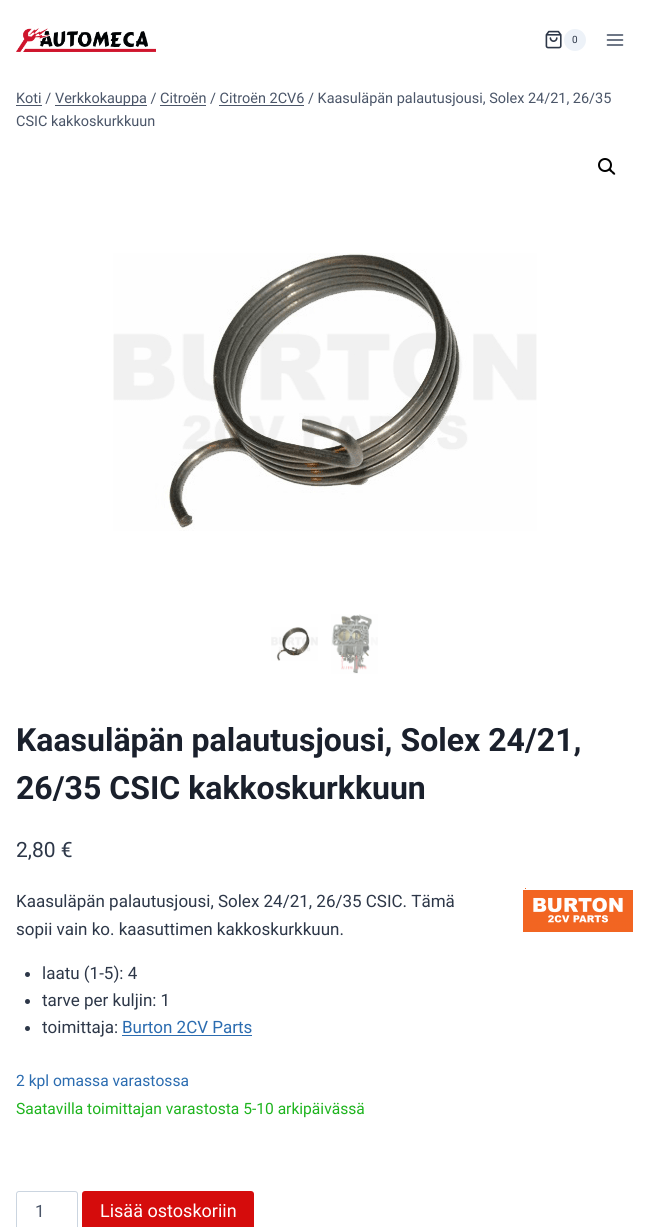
import math
import cairo

surface = cairo.ImageSurface(cairo.FORMAT_RGB24, 649, 1227)
ctx = cairo.Context(surface)
options = cairo.FontOptions()
options.set_hint_metrics(cairo.HINT_METRICS_OFF)
options.set_hint_style(cairo.HINT_STYLE_NONE)
ctx.set_font_options(options)
ctx.set_miter_limit(4)


def round_rect(x, y, w, h, r):
    ctx.new_sub_path()
    for i, (u, v) in enumerate([(x + w - r, y + h - r), (x + r, y + h - r), (x + r, y + r), (x + w - r, y + r)]):
        ctx.arc(u, v, r, i * math.pi / 2, (i + 1) * math.pi / 2)
    ctx.close_path()


def picture(path, x, y, w, h):
    ctx.save()
    ctx.set_source_surface(cairo.ImageSurface.create_from_png(path), x, y)
    ctx.rectangle(x, y, w, h)
    ctx.fill()
    ctx.restore()


ctx.set_source_rgb(1, 1, 1)
ctx.paint()
picture("img1.png", 16, 28, 140, 24)
picture("img2.png", 545, 30, 17, 19)
ctx.set_source_rgb(0.929, 0.949, 0.969)
ctx.arc(575, 40, 11, 0, 2 * math.pi)
ctx.fill()
ctx.select_font_face("Roboto")
ctx.set_font_size(10)
ctx.set_source_rgb(0.176, 0.216, 0.282)
ctx.move_to(572, 43)
ctx.show_text("0")
picture("img3.png", 606, 34, 18, 12)
ctx.set_font_size(14.45)
ctx.set_source_rgb(0.29, 0.333, 0.408)
ctx.move_to(16, 103)
ctx.show_text("Koti /")
ctx.rectangle(16, 105, 26, 1)
ctx.fill()
ctx.rectangle(55, 105, 92, 1)
ctx.fill()
ctx.move_to(55, 103)
ctx.show_text("Verkkokauppa / Citroën / Citroën 2CV6 / Kaasuläpän palautusjousi, Solex 24/21, 26/35")
ctx.rectangle(160, 105, 46, 1)
ctx.fill()
ctx.rectangle(219, 105, 85, 1)
ctx.fill()
ctx.move_to(16, 126)
ctx.show_text("CSIC kakkoskurkkuun")
ctx.new_path()
ctx.arc(605, 165, 6, 0, 2 * math.pi)
ctx.set_source_rgb(0, 0, 0)
ctx.stroke()
ctx.new_path()
ctx.move_to(609, 169)
ctx.curve_to(610.5, 167.5, 612, 170.5, 612.5, 171)
ctx.curve_to(613.5, 171.5, 616, 173.5, 615, 174.5)
ctx.curve_to(613.5, 175.5, 612, 173, 611.5, 172.5)
ctx.curve_to(610.5, 172, 608, 170, 609, 169)
ctx.close_path()
ctx.fill()
picture("img4.png", 113, 253, 424, 278)
picture("img5.png", 271, 627, 47, 34)
picture("img6.png", 331, 614, 47, 60)
ctx.select_font_face("Roboto", cairo.FONT_SLANT_NORMAL, cairo.FONT_WEIGHT_BOLD)
ctx.set_font_size(32)
ctx.set_source_rgb(0.102, 0.125, 0.173)
ctx.move_to(16, 751)
ctx.show_text("Kaasuläpän palautusjousi, Solex 24/21,")
ctx.move_to(16, 799)
ctx.show_text("26/35 CSIC kakkoskurkkuun")
ctx.select_font_face("Roboto")
ctx.set_font_size(21)
ctx.set_source_rgb(0.176, 0.216, 0.282)
ctx.move_to(16, 857)
ctx.show_text("2,80 €")
ctx.set_font_size(17)
ctx.move_to(16, 907)
ctx.show_text("Kaasuläpän palautusjousi, Solex 24/21, 26/35 CSIC. Tämä")
picture("img7.png", 523, 888, 110, 44)
ctx.move_to(16, 935)
ctx.show_text("sopii vain ko. kaasuttimen kakkoskurkkuun.")
ctx.new_path()
ctx.arc(27.5, 974.5, 2.5, 0, 2 * math.pi)
ctx.fill()
ctx.move_to(42, 979)
ctx.show_text("laatu (1-5): 4")
ctx.new_path()
ctx.arc(27.5, 1001.5, 2.5, 0, 2 * math.pi)
ctx.fill()
ctx.move_to(42, 1006)
ctx.show_text("tarve per kuljin: 1")
ctx.new_path()
ctx.arc(27.5, 1028.5, 2.5, 0, 2 * math.pi)
ctx.fill()
ctx.move_to(42, 1033)
ctx.show_text("toimittaja:")
ctx.set_source_rgb(0.169, 0.424, 0.69)
ctx.move_to(122, 1033)
ctx.show_text("Burton 2CV Parts")
ctx.rectangle(122, 1035, 130, 1)
ctx.fill()
ctx.set_font_size(15.6)
ctx.move_to(16, 1086)
ctx.show_text("2 kpl omassa varastossa")
ctx.set_source_rgb(0.118, 0.706, 0.118)
ctx.move_to(16, 1114)
ctx.show_text("Saatavilla toimittajan varastosta 5-10 arkipäivässä")
round_rect(16.5, 1191.5, 61, 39, 2.5)
ctx.set_source_rgb(0.796, 0.835, 0.878)
ctx.set_line_width(1)
ctx.stroke()
ctx.set_font_size(17)
ctx.set_source_rgb(0.29, 0.333, 0.408)
ctx.move_to(35, 1217)
ctx.show_text("1")
ctx.set_source_rgb(0.835, 0.047, 0.047)
round_rect(82, 1191, 172, 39, 3)
ctx.fill()
ctx.set_font_size(18)
ctx.set_source_rgb(1, 1, 1)
ctx.move_to(100, 1217)
ctx.show_text("Lisää ostoskoriin")
surface.write_to_png("page.png")
